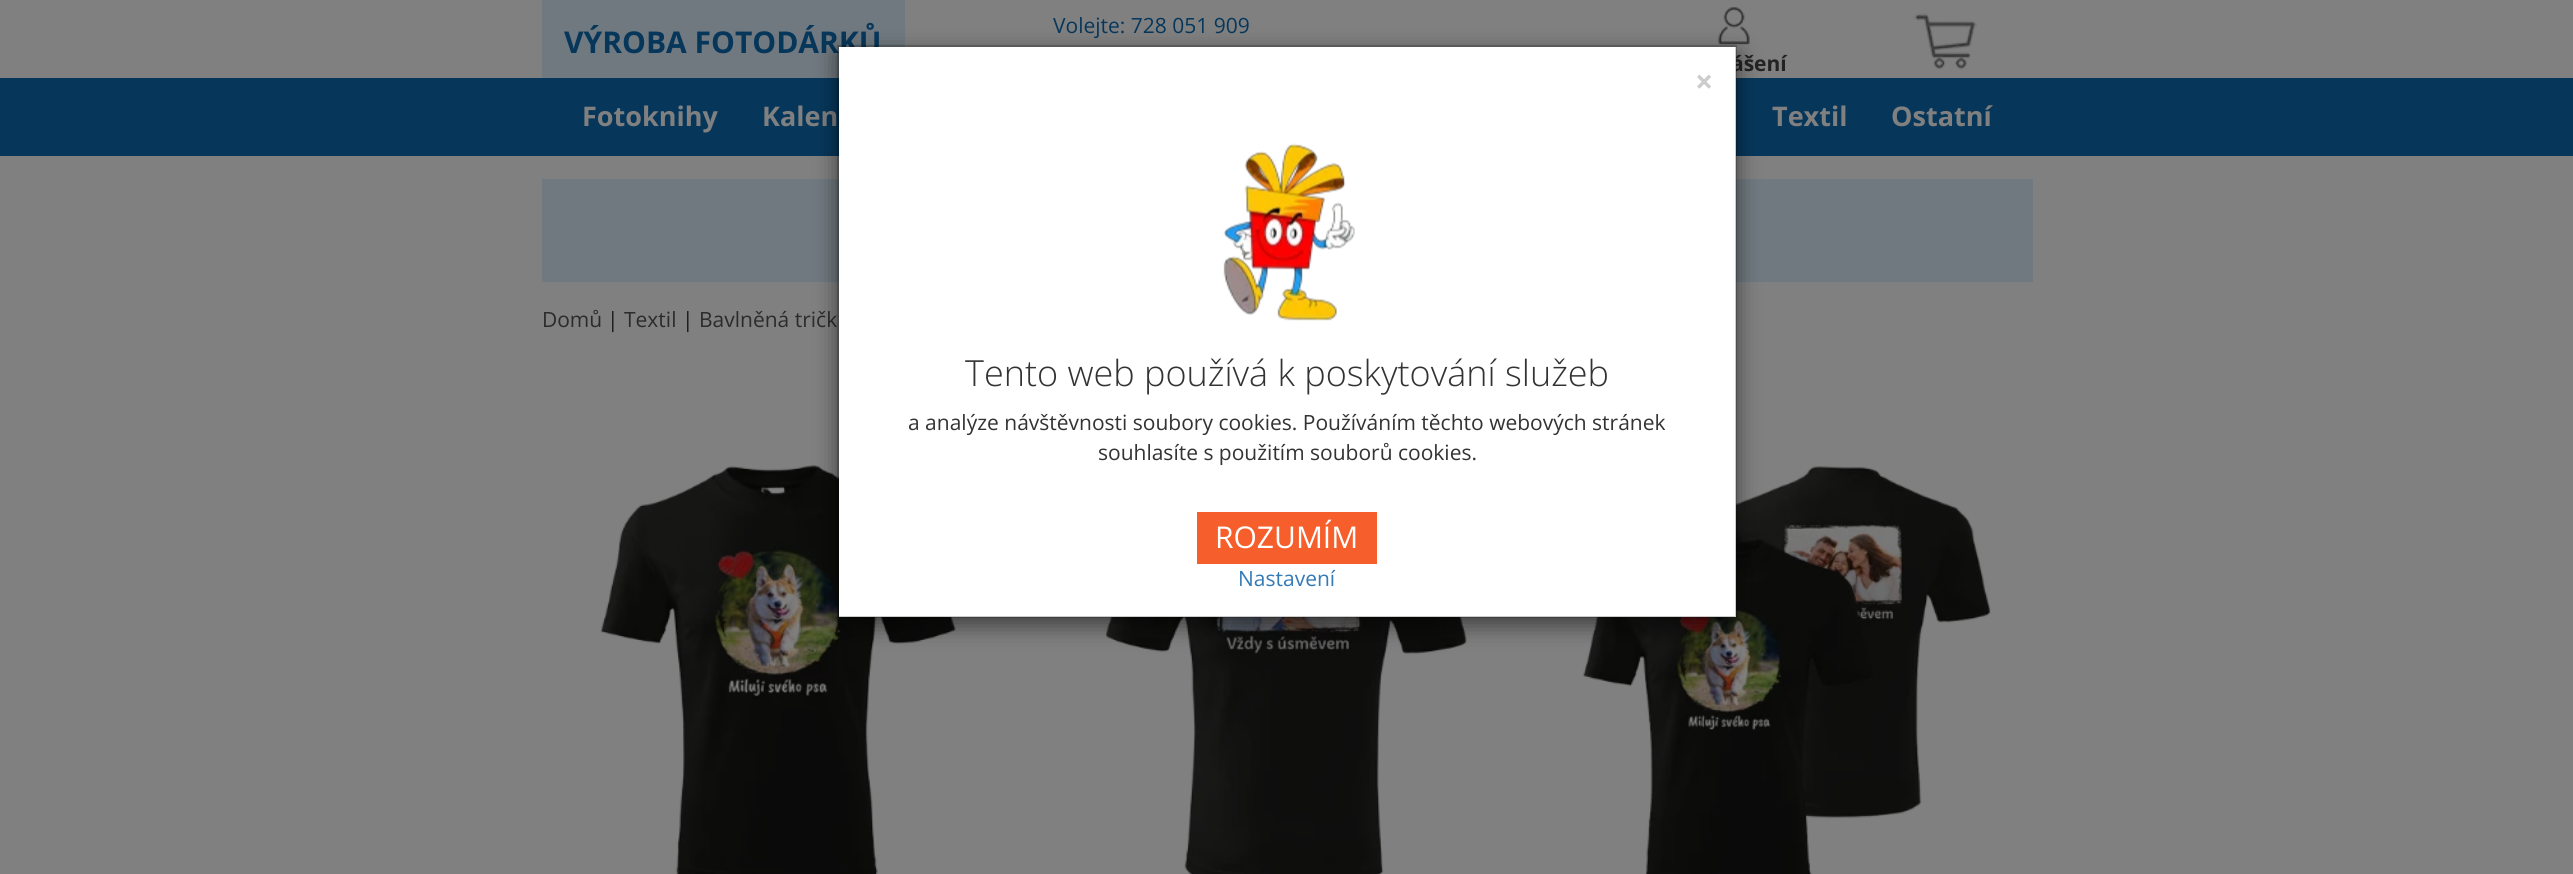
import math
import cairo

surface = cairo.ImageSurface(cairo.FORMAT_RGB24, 2573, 874)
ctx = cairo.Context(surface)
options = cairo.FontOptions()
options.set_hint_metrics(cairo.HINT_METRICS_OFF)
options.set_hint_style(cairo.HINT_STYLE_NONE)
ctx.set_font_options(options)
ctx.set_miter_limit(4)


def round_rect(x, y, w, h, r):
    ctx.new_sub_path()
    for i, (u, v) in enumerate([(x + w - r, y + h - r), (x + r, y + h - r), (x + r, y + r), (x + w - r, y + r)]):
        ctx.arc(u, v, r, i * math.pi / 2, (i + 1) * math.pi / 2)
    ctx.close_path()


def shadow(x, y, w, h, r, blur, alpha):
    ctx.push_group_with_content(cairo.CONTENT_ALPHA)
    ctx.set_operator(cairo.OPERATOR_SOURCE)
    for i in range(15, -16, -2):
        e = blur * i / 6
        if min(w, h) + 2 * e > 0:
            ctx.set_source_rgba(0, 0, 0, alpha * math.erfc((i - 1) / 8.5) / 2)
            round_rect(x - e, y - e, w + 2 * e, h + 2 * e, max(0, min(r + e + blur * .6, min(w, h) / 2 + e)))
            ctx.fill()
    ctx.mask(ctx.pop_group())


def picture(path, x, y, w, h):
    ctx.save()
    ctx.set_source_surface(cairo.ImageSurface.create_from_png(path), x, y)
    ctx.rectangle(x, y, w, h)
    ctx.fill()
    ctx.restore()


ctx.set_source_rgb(0.502, 0.502, 0.502)
ctx.paint()
ctx.set_source_rgb(0.439, 0.475, 0.498)
ctx.rectangle(542, 0, 363, 78)
ctx.fill()
ctx.select_font_face("Open Sans", cairo.FONT_SLANT_NORMAL, cairo.FONT_WEIGHT_BOLD)
ctx.set_font_size(30)
ctx.set_source_rgb(0.024, 0.216, 0.357)
ctx.move_to(564, 53)
ctx.show_text("VÝROBA FOTODÁRKŮ")
ctx.select_font_face("Open Sans")
ctx.set_font_size(21)
ctx.move_to(1053, 33)
ctx.show_text("Volejte: 728 051 909")
picture("img1.png", 1718, 7, 32, 38)
ctx.select_font_face("Open Sans", cairo.FONT_SLANT_NORMAL, cairo.FONT_WEIGHT_BOLD)
ctx.set_source_rgb(0.137, 0.137, 0.137)
ctx.move_to(1731, 71)
ctx.show_text("ášení")
picture("img2.png", 1912, 13, 65, 57)
ctx.set_source_rgb(0.024, 0.216, 0.357)
ctx.rectangle(0, 78, 2573, 78)
ctx.fill()
ctx.set_font_size(27)
ctx.set_source_rgb(0.502, 0.502, 0.502)
ctx.move_to(582, 126)
ctx.show_text("Fotoknihy")
ctx.move_to(762, 126)
ctx.show_text("Kalen")
ctx.move_to(1772, 126)
ctx.show_text("Textil")
ctx.move_to(1891, 126)
ctx.show_text("Ostatní")
ctx.set_source_rgb(0.439, 0.475, 0.498)
ctx.rectangle(542, 179, 1491, 103)
ctx.fill()
ctx.select_font_face("Open Sans")
ctx.set_font_size(21)
ctx.set_source_rgb(0.169, 0.169, 0.169)
ctx.move_to(542, 327)
ctx.show_text("Domů")
ctx.set_source_rgb(0.102, 0.102, 0.102)
ctx.move_to(607, 327)
ctx.show_text("|")
ctx.set_source_rgb(0.169, 0.169, 0.169)
ctx.move_to(624, 327)
ctx.show_text("Textil")
ctx.set_source_rgb(0.102, 0.102, 0.102)
ctx.move_to(682, 327)
ctx.show_text("|")
ctx.set_source_rgb(0.169, 0.169, 0.169)
ctx.move_to(699, 327)
ctx.show_text("Bavlněná tričk")
picture("img3.png", 600, 465, 356, 409)
picture("img4.png", 1106, 617, 361, 257)
picture("img5.png", 1583, 466, 408, 408)
ctx.set_source_rgb(0, 0, 0)
shadow(837, 53, 900, 573, 0, 11, 0.5)
ctx.set_source_rgb(1, 1, 1)
ctx.rectangle(839, 47, 897, 570)
ctx.fill()
ctx.rectangle(838, 46, 898, 571)
ctx.set_source_rgba(0, 0, 0, 0.2)
ctx.stroke()
ctx.select_font_face("Open Sans", cairo.FONT_SLANT_NORMAL, cairo.FONT_WEIGHT_BOLD)
ctx.set_font_size(32)
ctx.set_source_rgb(0.8, 0.8, 0.8)
ctx.move_to(1695, 93)
ctx.show_text("×")
picture("img6.png", 1223, 143, 132, 178)
ctx.select_font_face("Open Sans Light")
ctx.set_font_size(36)
ctx.set_source_rgb(0.2, 0.2, 0.2)
ctx.move_to(965, 386)
ctx.show_text("Tento web používá k poskytování služeb")
ctx.select_font_face("Open Sans")
ctx.set_font_size(21)
ctx.move_to(908, 430)
ctx.show_text("a analýze návštěvnosti soubory cookies. Používáním těchto webových stránek")
ctx.move_to(1098, 460)
ctx.show_text("souhlasíte s použitím souborů cookies.")
ctx.set_source_rgb(0.961, 0.373, 0.173)
ctx.rectangle(1197, 512, 180, 52)
ctx.fill()
ctx.set_font_size(30)
ctx.set_source_rgb(1, 1, 1)
ctx.move_to(1215, 548)
ctx.show_text("ROZUMÍM")
ctx.set_font_size(21)
ctx.set_source_rgb(0.2, 0.478, 0.718)
ctx.move_to(1238, 586)
ctx.show_text("Nastavení")
surface.write_to_png("page.png")
